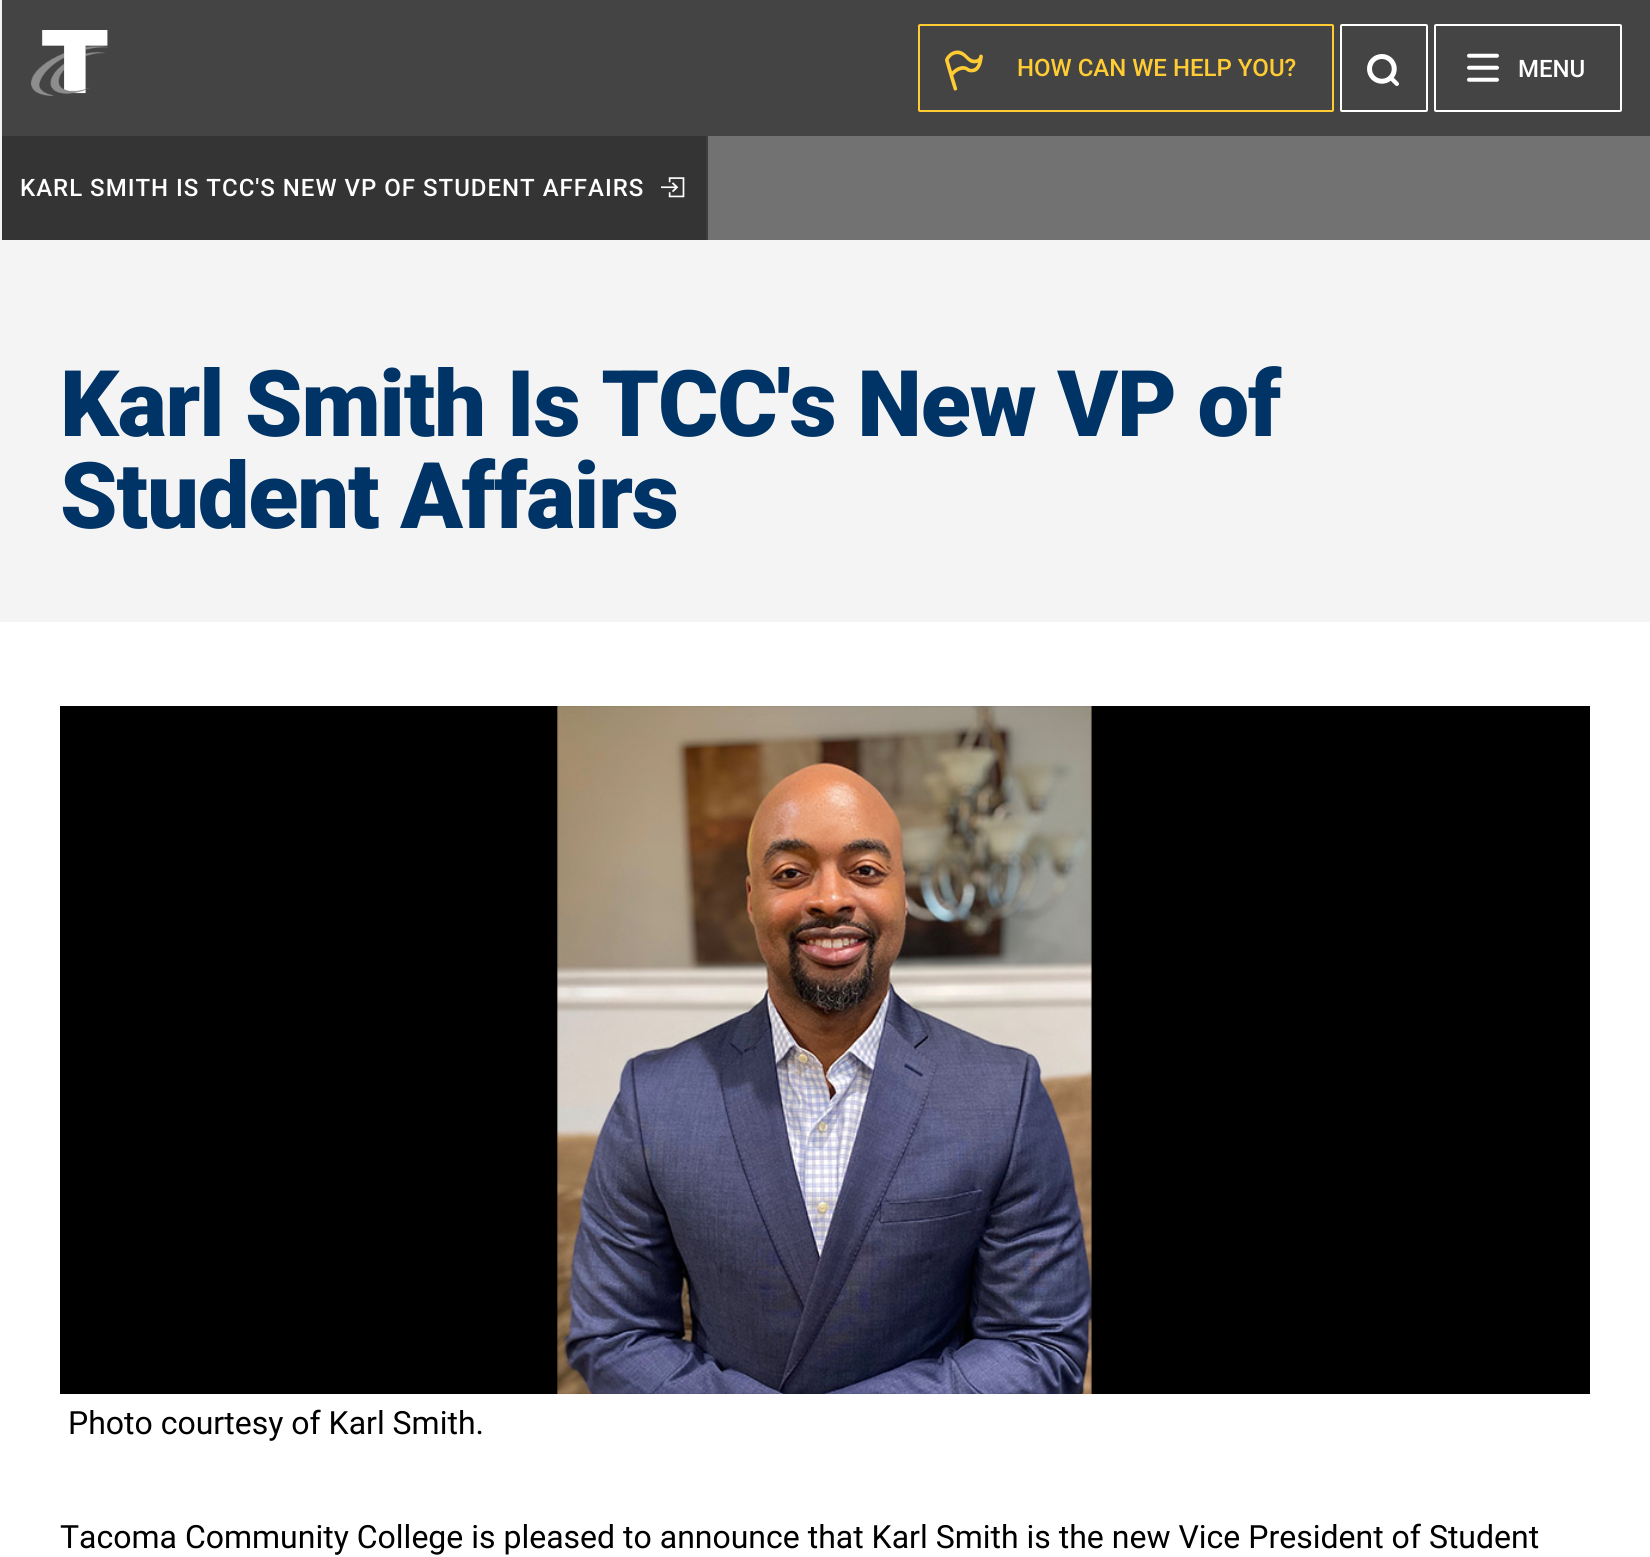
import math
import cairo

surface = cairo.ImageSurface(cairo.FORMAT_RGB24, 1650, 1557)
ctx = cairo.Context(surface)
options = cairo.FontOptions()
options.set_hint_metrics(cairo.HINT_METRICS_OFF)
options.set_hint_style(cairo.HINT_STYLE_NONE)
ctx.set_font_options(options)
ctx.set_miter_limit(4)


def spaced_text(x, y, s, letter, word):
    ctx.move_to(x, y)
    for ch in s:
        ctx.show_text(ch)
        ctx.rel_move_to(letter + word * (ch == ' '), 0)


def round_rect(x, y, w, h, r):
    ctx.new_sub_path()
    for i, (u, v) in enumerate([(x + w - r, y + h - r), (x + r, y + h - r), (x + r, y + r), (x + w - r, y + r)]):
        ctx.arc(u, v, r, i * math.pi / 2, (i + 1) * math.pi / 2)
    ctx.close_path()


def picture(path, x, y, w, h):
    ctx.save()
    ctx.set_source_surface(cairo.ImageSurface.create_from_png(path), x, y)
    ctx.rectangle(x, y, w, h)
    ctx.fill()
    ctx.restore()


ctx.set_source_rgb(1, 1, 1)
ctx.paint()
ctx.set_source_rgb(0.957, 0.957, 0.957)
ctx.rectangle(0, 0, 1650, 622)
ctx.fill()
ctx.set_source_rgb(0.267, 0.267, 0.267)
ctx.rectangle(2, 0, 1648, 136)
ctx.fill()
picture("img1.png", 31, 30, 77, 66)
round_rect(919, 25, 414, 86, 1)
ctx.set_source_rgb(1, 0.8, 0.2)
ctx.stroke()
picture("img2.png", 945, 50, 38, 41)
ctx.select_font_face("Roboto Medium")
ctx.set_font_size(24)
ctx.move_to(1017, 76)
ctx.show_text("HOW CAN WE HELP YOU?")
round_rect(1341, 25, 86, 86, 1)
ctx.set_source_rgb(1, 1, 1)
ctx.stroke()
picture("img3.png", 1367, 54, 32, 32)
round_rect(1435, 25, 186, 86, 1)
ctx.stroke()
picture("img4.png", 1467, 53, 32, 29)
ctx.move_to(1518, 77)
ctx.show_text("MENU")
ctx.set_source_rgb(0.447, 0.447, 0.447)
ctx.rectangle(708, 136, 942, 104)
ctx.fill()
ctx.set_source_rgb(0.204, 0.204, 0.204)
ctx.rectangle(2, 136, 704, 104)
ctx.fill()
ctx.set_source_rgb(0.239, 0.239, 0.239)
ctx.rectangle(706, 136, 2, 104)
ctx.fill()
ctx.set_source_rgb(1, 1, 1)
spaced_text(20, 196, "KARL SMITH IS TCC'S NEW VP OF STUDENT AFFAIRS", 1, 0)
picture("img5.png", 661, 177, 24, 21)
ctx.select_font_face("Roboto Black")
ctx.set_font_size(92)
ctx.set_source_rgb(0, 0.2, 0.4)
spaced_text(60, 436, "Karl Smith Is TCC's New VP of", -1.15, 0)
spaced_text(60, 528, "Student Affairs", -1.15, 0)
picture("img6.png", 60, 706, 1530, 688)
ctx.select_font_face("Roboto")
ctx.set_font_size(32)
ctx.set_source_rgb(0, 0, 0)
ctx.move_to(68, 1434)
ctx.show_text("Photo courtesy of Karl Smith.")
ctx.move_to(60, 1548)
ctx.show_text("Tacoma Community College is pleased to announce that Karl Smith is the new Vice President of Student")
surface.write_to_png("page.png")
